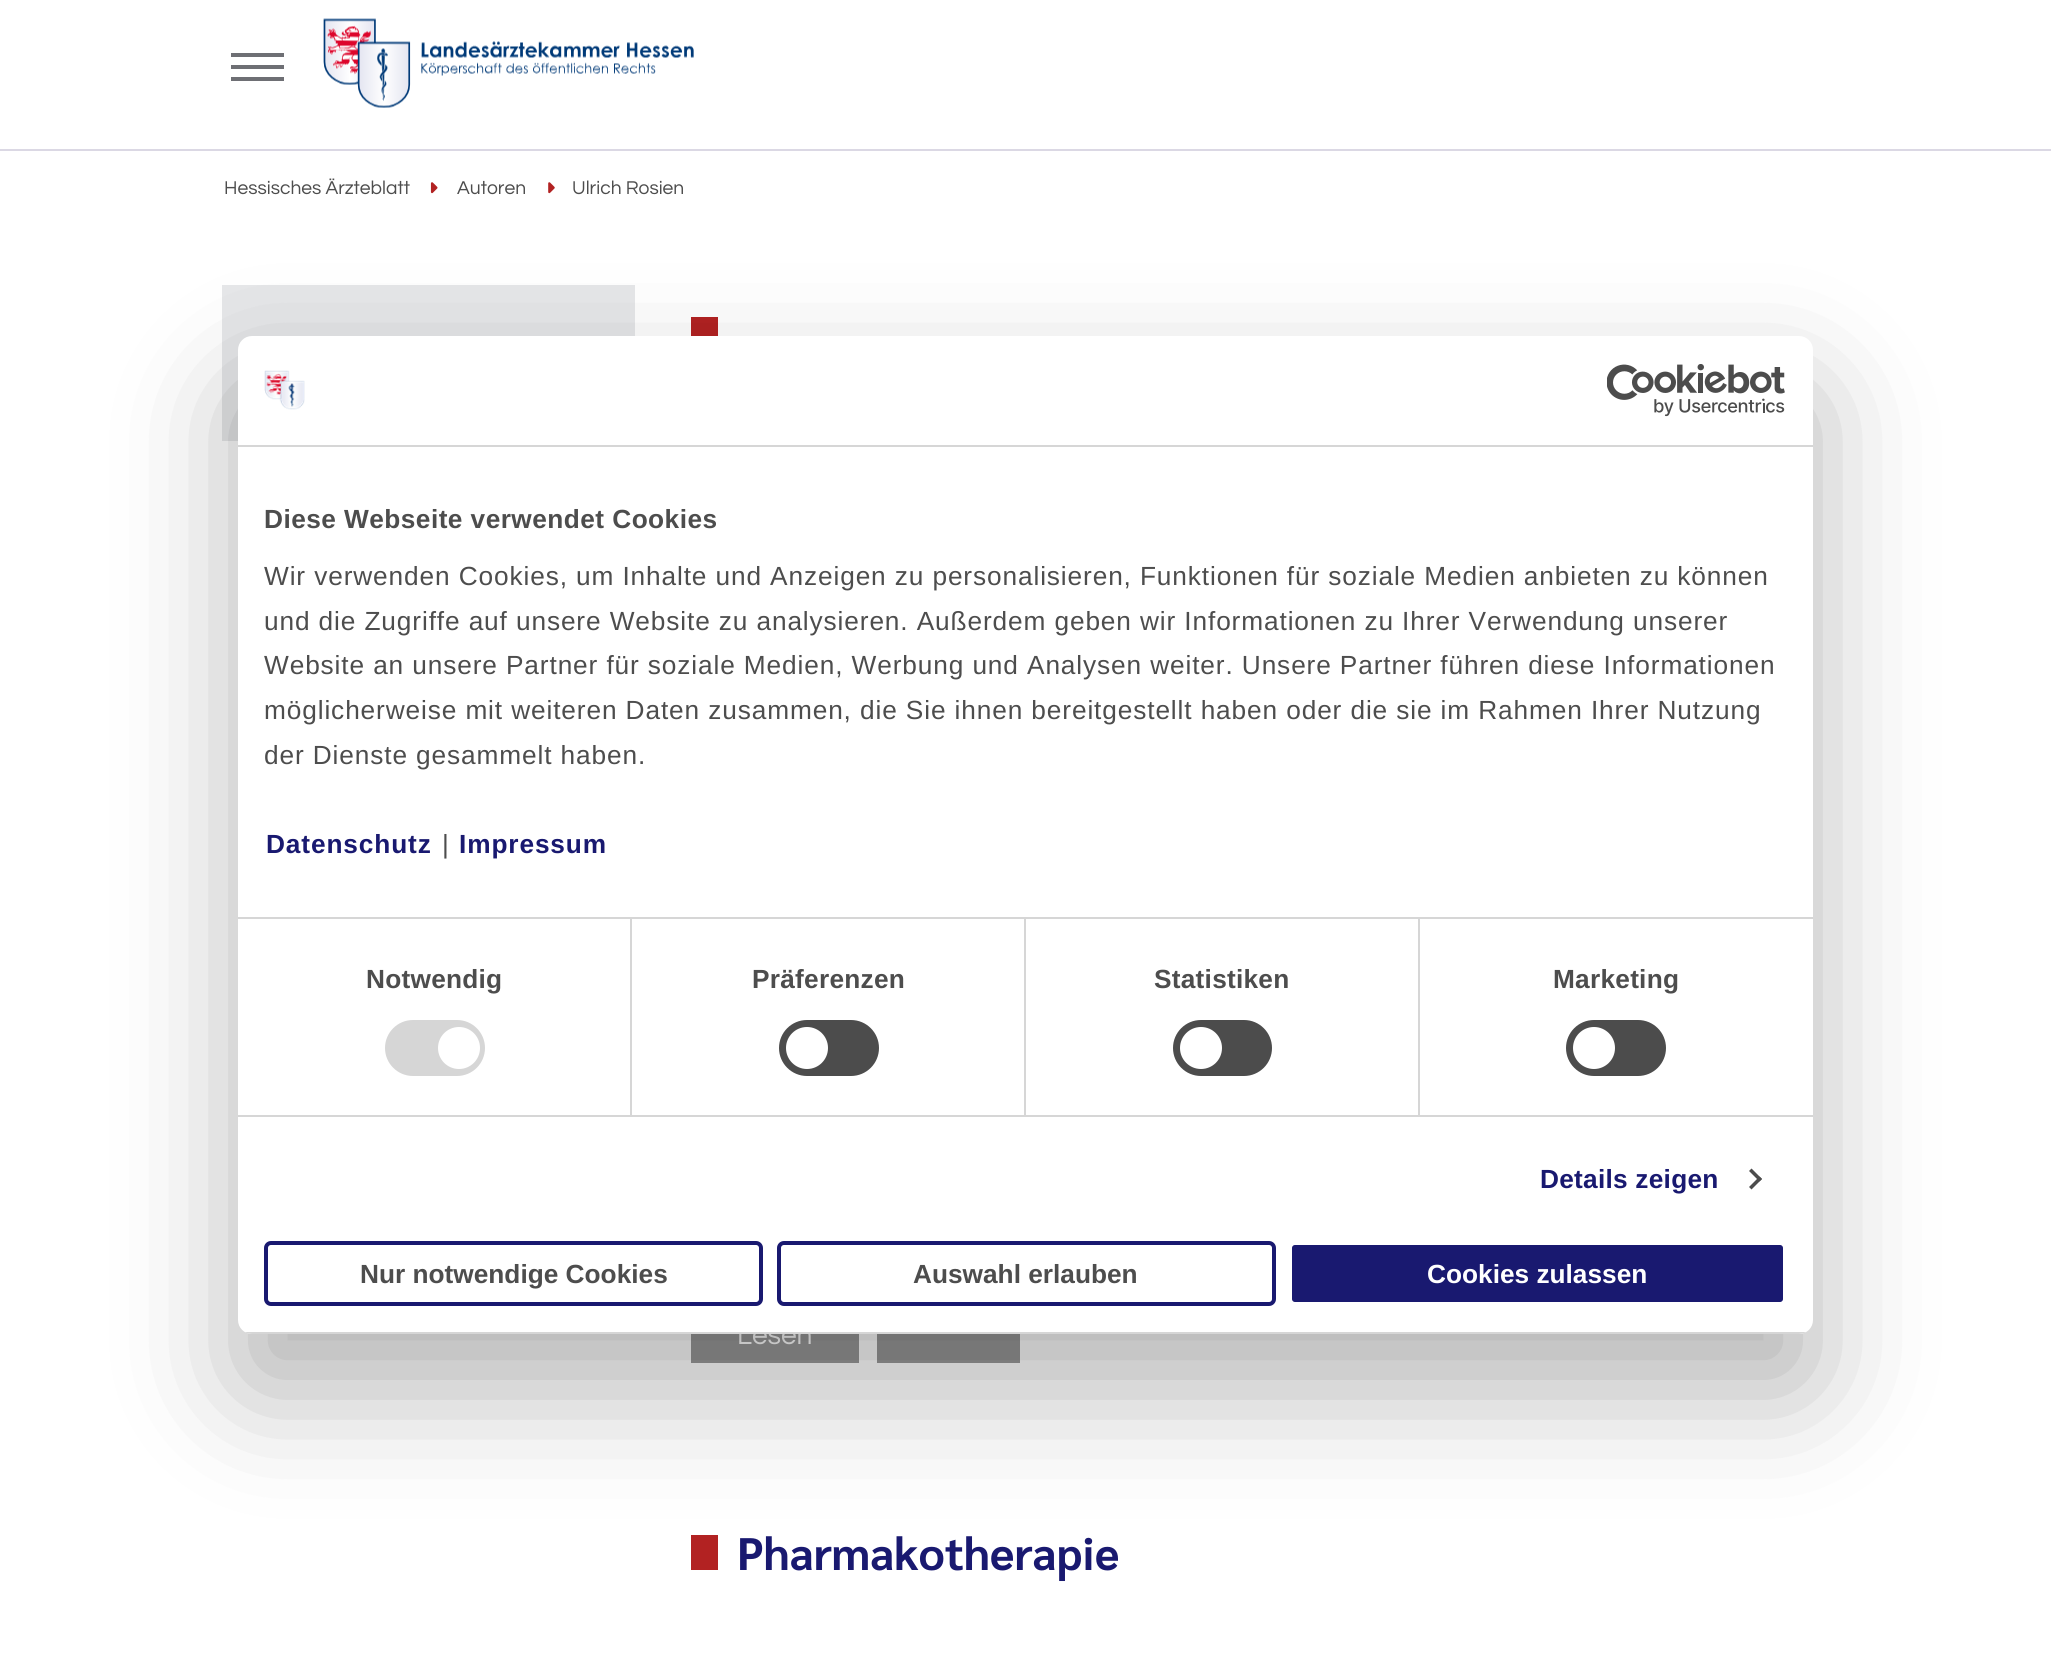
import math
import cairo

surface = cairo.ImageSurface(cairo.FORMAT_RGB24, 2051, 1669)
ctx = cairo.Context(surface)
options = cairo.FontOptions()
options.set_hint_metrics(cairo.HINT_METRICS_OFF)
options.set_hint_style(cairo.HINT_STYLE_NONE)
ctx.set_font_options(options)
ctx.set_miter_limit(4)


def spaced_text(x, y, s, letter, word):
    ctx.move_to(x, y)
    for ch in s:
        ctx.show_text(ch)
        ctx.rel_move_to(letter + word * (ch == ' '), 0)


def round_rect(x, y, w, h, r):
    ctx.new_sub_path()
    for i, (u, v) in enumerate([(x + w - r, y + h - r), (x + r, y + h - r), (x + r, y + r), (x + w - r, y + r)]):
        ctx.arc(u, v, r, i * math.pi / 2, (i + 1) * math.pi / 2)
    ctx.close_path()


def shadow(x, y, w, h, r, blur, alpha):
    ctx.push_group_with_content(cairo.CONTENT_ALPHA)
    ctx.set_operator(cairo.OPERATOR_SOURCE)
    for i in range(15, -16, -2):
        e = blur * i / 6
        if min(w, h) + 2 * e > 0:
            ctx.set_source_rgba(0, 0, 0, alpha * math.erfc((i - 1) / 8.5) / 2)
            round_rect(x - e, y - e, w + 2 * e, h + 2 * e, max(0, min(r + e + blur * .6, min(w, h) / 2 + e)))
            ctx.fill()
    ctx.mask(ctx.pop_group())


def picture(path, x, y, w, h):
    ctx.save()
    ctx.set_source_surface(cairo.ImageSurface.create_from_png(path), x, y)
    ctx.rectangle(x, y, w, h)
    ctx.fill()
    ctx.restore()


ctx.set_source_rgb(1, 1, 1)
ctx.paint()
ctx.set_source_rgb(0.431, 0.435, 0.455)
ctx.rectangle(231, 53, 53, 4)
ctx.fill()
ctx.rectangle(231, 65, 53, 4)
ctx.fill()
ctx.rectangle(231, 77, 53, 4)
ctx.fill()
picture("img1.png", 323, 18, 371, 90)
ctx.set_source_rgb(0.859, 0.847, 0.894)
ctx.rectangle(0, 149, 2051, 2)
ctx.fill()
ctx.select_font_face("Questrial")
ctx.set_font_size(19.25)
ctx.set_source_rgb(0.302, 0.302, 0.302)
ctx.move_to(224, 194)
ctx.show_text("Hessisches Ärzteblatt")
picture("img2.png", 430, 182, 8, 12)
ctx.move_to(457, 194)
ctx.show_text("Autoren")
picture("img3.png", 548, 182, 7, 12)
ctx.move_to(572, 194)
ctx.show_text("Ulrich Rosien")
ctx.set_source_rgb(0.902, 0.906, 0.914)
ctx.rectangle(222, 285, 413, 156)
ctx.fill()
ctx.set_source_rgb(0.698, 0.133, 0.133)
ctx.rectangle(691, 317, 27, 19)
ctx.fill()
ctx.set_source_rgb(0.6, 0.6, 0.6)
ctx.rectangle(691, 1334, 168, 29)
ctx.fill()
ctx.set_font_size(28)
ctx.set_source_rgb(1, 1, 1)
ctx.move_to(737, 1344)
ctx.show_text("Lesen")
ctx.set_source_rgb(0.6, 0.6, 0.6)
ctx.rectangle(877, 1334, 143, 29)
ctx.fill()
ctx.set_source_rgb(0.698, 0.133, 0.133)
ctx.rectangle(691, 1535, 27, 35)
ctx.fill()
ctx.select_font_face("Sarabun", cairo.FONT_SLANT_NORMAL, cairo.FONT_WEIGHT_BOLD)
ctx.set_font_size(45.5)
ctx.set_source_rgb(0.098, 0.098, 0.439)
ctx.move_to(737, 1570)
ctx.show_text("Pharmakotherapie")
ctx.set_source_rgb(0, 0, 0)
shadow(238, 392, 1575, 998, 14, 59.5, 0.3)
ctx.set_source_rgb(1, 1, 1)
round_rect(238, 336, 1575, 998, 14)
ctx.fill()
ctx.set_source_rgb(0.839, 0.839, 0.839)
ctx.rectangle(238, 445, 1575, 2)
ctx.fill()
picture("img4.png", 264, 370, 41, 40)
picture("img5.png", 1607, 364, 178, 53)
ctx.rectangle(238, 917, 1575, 2)
ctx.fill()
ctx.select_font_face("Liberation Sans", cairo.FONT_SLANT_NORMAL, cairo.FONT_WEIGHT_BOLD)
ctx.set_font_size(26.25)
ctx.set_source_rgb(0.302, 0.302, 0.302)
spaced_text(264, 528, "Diese Webseite verwendet Cookies", 0.45, 0)
ctx.select_font_face("Liberation Sans")
spaced_text(264, 585, "Wir verwenden Cookies, um Inhalte und Anzeigen zu personalisieren, Funktionen für soziale Medien anbieten zu können", 0.88, 0)
spaced_text(264, 630, "und die Zugriffe auf unsere Website zu analysieren. Außerdem geben wir Informationen zu Ihrer Verwendung unserer", 0.88, 0)
spaced_text(264, 674, "Website an unsere Partner für soziale Medien, Werbung und Analysen weiter. Unsere Partner führen diese Informationen", 0.88, 0)
spaced_text(264, 719, "möglicherweise mit weiteren Daten zusammen, die Sie ihnen bereitgestellt haben oder die sie im Rahmen Ihrer Nutzung", 0.88, 0)
spaced_text(264, 764, "der Dienste gesammelt haben.", 0.88, 0)
ctx.select_font_face("Liberation Sans", cairo.FONT_SLANT_NORMAL, cairo.FONT_WEIGHT_BOLD)
ctx.set_source_rgb(0.098, 0.098, 0.439)
spaced_text(266, 853, "Datenschutz", 0.88, 0)
ctx.select_font_face("Liberation Sans")
ctx.set_source_rgb(0.302, 0.302, 0.302)
spaced_text(442, 853, "|", 0.88, 0)
ctx.select_font_face("Liberation Sans", cairo.FONT_SLANT_NORMAL, cairo.FONT_WEIGHT_BOLD)
ctx.set_source_rgb(0.098, 0.098, 0.439)
spaced_text(459, 853, "Impressum", 0.88, 0)
ctx.set_source_rgb(0.839, 0.839, 0.839)
ctx.rectangle(238, 1115, 1575, 2)
ctx.fill()
ctx.rectangle(630, 919, 2, 196)
ctx.fill()
ctx.set_source_rgb(0.302, 0.302, 0.302)
spaced_text(366, 988, "Notwendig", 0.25, 0)
ctx.set_source_rgb(0.839, 0.839, 0.839)
round_rect(385, 1020, 100, 56, 28)
ctx.fill()
ctx.set_source_rgb(1, 1, 1)
ctx.arc(459, 1048, 21, 0, 2 * math.pi)
ctx.fill()
ctx.set_source_rgb(0.839, 0.839, 0.839)
ctx.rectangle(1024, 919, 2, 196)
ctx.fill()
ctx.set_source_rgb(0.302, 0.302, 0.302)
spaced_text(752, 988, "Präferenzen", 0.25, 0)
ctx.set_source_rgb(0.298, 0.298, 0.298)
round_rect(779, 1020, 100, 56, 28)
ctx.fill()
ctx.set_source_rgb(1, 1, 1)
ctx.arc(807, 1048, 21, 0, 2 * math.pi)
ctx.fill()
ctx.set_source_rgb(0.839, 0.839, 0.839)
ctx.rectangle(1418, 919, 2, 196)
ctx.fill()
ctx.set_source_rgb(0.302, 0.302, 0.302)
spaced_text(1154, 988, "Statistiken", 0.25, 0)
ctx.set_source_rgb(0.298, 0.298, 0.298)
round_rect(1173, 1020, 99, 56, 28)
ctx.fill()
ctx.set_source_rgb(1, 1, 1)
ctx.arc(1201, 1048, 21, 0, 2 * math.pi)
ctx.fill()
ctx.set_source_rgb(0.302, 0.302, 0.302)
spaced_text(1553, 988, "Marketing", 0.25, 0)
ctx.set_source_rgb(0.298, 0.298, 0.298)
round_rect(1566, 1020, 100, 56, 28)
ctx.fill()
ctx.set_source_rgb(1, 1, 1)
ctx.arc(1594, 1048, 21, 0, 2 * math.pi)
ctx.fill()
ctx.set_source_rgb(0.098, 0.098, 0.439)
spaced_text(1540, 1188, "Details zeigen", 0.25, 0)
ctx.set_source_rgb(0.298, 0.298, 0.298)
ctx.new_path()
ctx.move_to(1751.5, 1168.5)
ctx.line_to(1762, 1179)
ctx.line_to(1759.5, 1181.5)
ctx.line_to(1749, 1171)
ctx.close_path()
ctx.fill()
ctx.new_path()
ctx.move_to(1759.5, 1176.5)
ctx.line_to(1762, 1179)
ctx.line_to(1751.5, 1189.5)
ctx.line_to(1749, 1187)
ctx.close_path()
ctx.fill()
ctx.save()
round_rect(238, 336, 1575, 998, 14)
ctx.clip()
ctx.set_source_rgb(0.839, 0.839, 0.839)
ctx.rectangle(238, 1332, 1575, 2)
ctx.fill()
ctx.restore()
round_rect(266, 1243, 495, 61, 5)
ctx.set_source_rgb(0.098, 0.098, 0.439)
ctx.set_line_width(4)
ctx.stroke()
ctx.set_source_rgb(0.302, 0.302, 0.302)
ctx.move_to(360, 1283)
ctx.show_text("Nur notwendige Cookies")
round_rect(779, 1243, 495, 61, 5)
ctx.set_source_rgb(0.098, 0.098, 0.439)
ctx.stroke()
ctx.set_source_rgb(0.302, 0.302, 0.302)
ctx.move_to(913, 1283)
ctx.show_text("Auswahl erlauben")
ctx.set_source_rgb(0.098, 0.098, 0.439)
round_rect(1290, 1243, 495, 61, 5)
ctx.fill_preserve()
ctx.set_source_rgb(1, 1, 1)
ctx.stroke()
ctx.move_to(1427, 1283)
ctx.show_text("Cookies zulassen")
surface.write_to_png("page.png")
